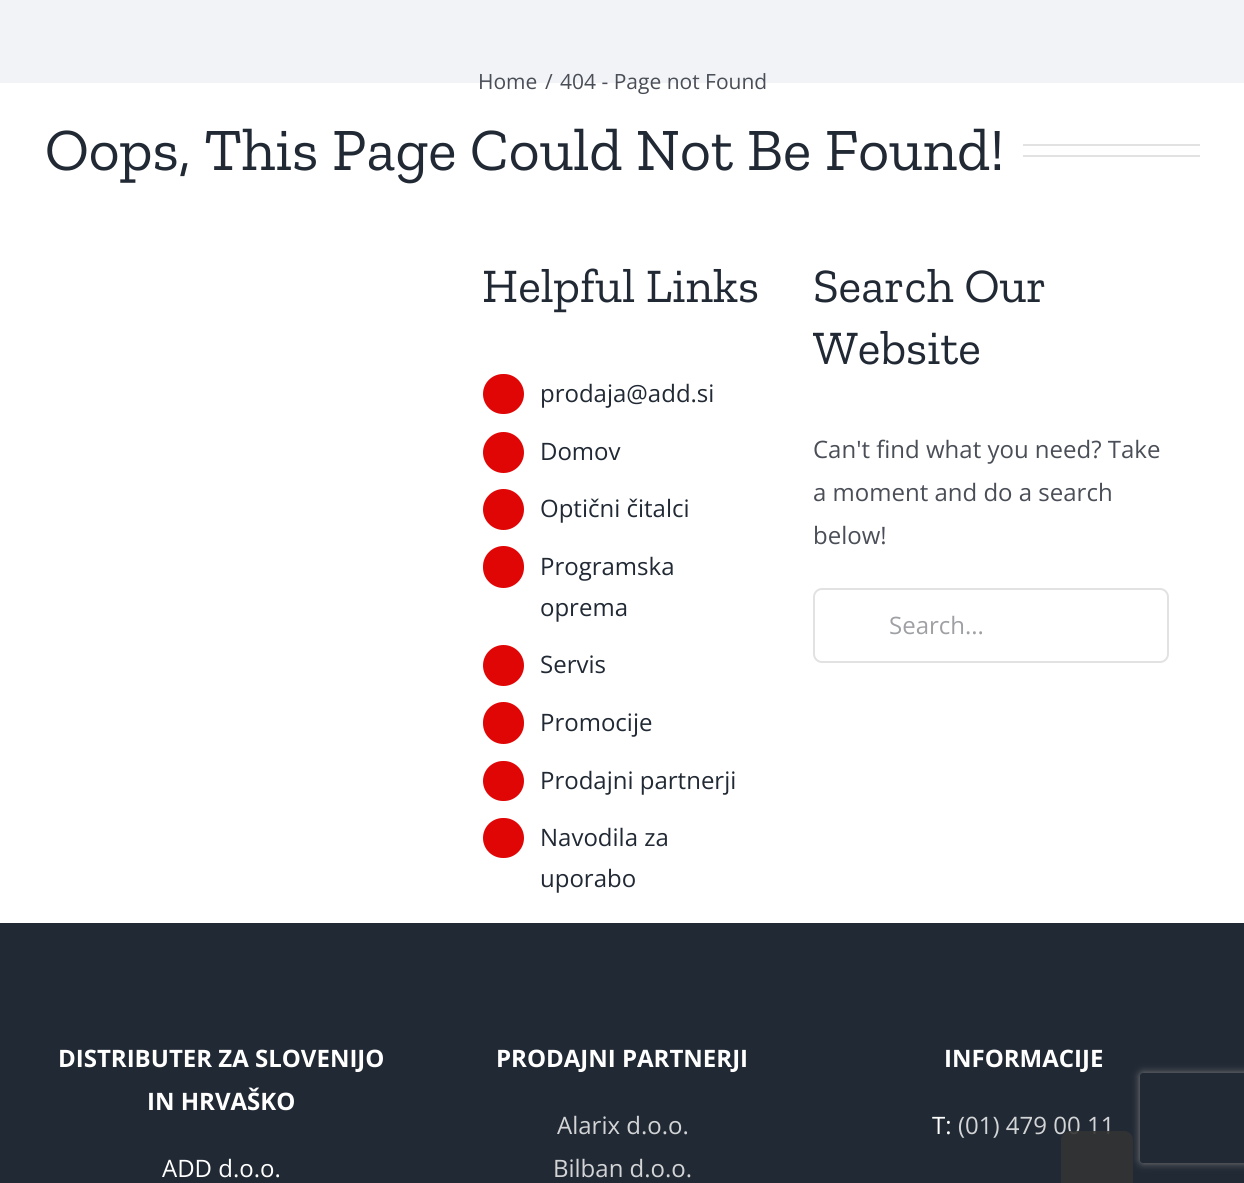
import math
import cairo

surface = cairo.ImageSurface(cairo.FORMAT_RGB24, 1244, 1183)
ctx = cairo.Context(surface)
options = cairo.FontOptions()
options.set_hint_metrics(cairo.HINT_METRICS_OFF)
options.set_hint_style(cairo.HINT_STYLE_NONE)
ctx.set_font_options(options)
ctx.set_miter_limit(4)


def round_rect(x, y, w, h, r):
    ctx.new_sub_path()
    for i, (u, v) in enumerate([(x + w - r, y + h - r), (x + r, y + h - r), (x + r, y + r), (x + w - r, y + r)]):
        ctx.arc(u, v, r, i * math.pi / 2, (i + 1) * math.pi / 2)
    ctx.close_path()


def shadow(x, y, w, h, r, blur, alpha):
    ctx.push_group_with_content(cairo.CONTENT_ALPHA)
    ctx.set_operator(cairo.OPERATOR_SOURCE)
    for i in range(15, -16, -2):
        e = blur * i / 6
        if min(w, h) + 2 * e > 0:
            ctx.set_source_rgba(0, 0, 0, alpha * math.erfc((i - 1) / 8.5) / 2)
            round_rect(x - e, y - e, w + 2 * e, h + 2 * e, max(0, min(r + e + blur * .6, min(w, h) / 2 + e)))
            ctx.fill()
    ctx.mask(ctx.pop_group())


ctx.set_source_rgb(1, 1, 1)
ctx.paint()
ctx.set_source_rgb(0.949, 0.953, 0.961)
ctx.rectangle(0, 0, 1244, 83)
ctx.fill()
ctx.select_font_face("Open Sans")
ctx.set_font_size(21)
ctx.set_source_rgb(0.29, 0.306, 0.341)
ctx.move_to(478, 89)
ctx.show_text("Home")
ctx.move_to(545, 89)
ctx.show_text("/")
ctx.move_to(560, 89)
ctx.show_text("404 - Page not Found")
ctx.select_font_face("Zilla Slab")
ctx.set_font_size(60)
ctx.set_source_rgb(0.129, 0.161, 0.204)
ctx.move_to(45, 170)
ctx.show_text("Oops, This Page Could Not Be Found!")
ctx.set_source_rgb(0.886, 0.886, 0.886)
ctx.rectangle(1023, 144, 177, 2)
ctx.fill()
ctx.rectangle(1023, 155, 177, 2)
ctx.fill()
ctx.set_font_size(48)
ctx.set_source_rgb(0.129, 0.161, 0.204)
ctx.move_to(482, 302)
ctx.show_text("Helpful Links")
ctx.set_source_rgb(0.882, 0.027, 0.027)
round_rect(483, 374, 41, 40, 20)
ctx.fill()
ctx.select_font_face("Open Sans")
ctx.set_font_size(24)
ctx.set_source_rgb(0.129, 0.161, 0.204)
ctx.move_to(540, 402)
ctx.show_text("prodaja@add.si")
ctx.set_source_rgb(0.882, 0.027, 0.027)
ctx.new_path()
ctx.arc(503.5, 452.5, 20.5, 0, 2 * math.pi)
ctx.fill()
ctx.set_source_rgb(0.129, 0.161, 0.204)
ctx.move_to(540, 460)
ctx.show_text("Domov")
ctx.set_source_rgb(0.882, 0.027, 0.027)
ctx.new_path()
ctx.arc(503.5, 509.5, 20.5, 0, 2 * math.pi)
ctx.fill()
ctx.set_source_rgb(0.129, 0.161, 0.204)
ctx.move_to(540, 517)
ctx.show_text("Optični čitalci")
ctx.set_source_rgb(0.882, 0.027, 0.027)
round_rect(483, 546, 41, 42, 20.5)
ctx.fill()
ctx.set_source_rgb(0.129, 0.161, 0.204)
ctx.move_to(540, 575)
ctx.show_text("Programska")
ctx.move_to(540, 616)
ctx.show_text("oprema")
ctx.set_source_rgb(0.882, 0.027, 0.027)
ctx.new_path()
ctx.arc(503.5, 665.5, 20.5, 0, 2 * math.pi)
ctx.fill()
ctx.set_source_rgb(0.129, 0.161, 0.204)
ctx.move_to(540, 673)
ctx.show_text("Servis")
ctx.set_source_rgb(0.882, 0.027, 0.027)
round_rect(483, 702, 41, 42, 20.5)
ctx.fill()
ctx.set_source_rgb(0.129, 0.161, 0.204)
ctx.move_to(540, 731)
ctx.show_text("Promocije")
ctx.set_source_rgb(0.882, 0.027, 0.027)
round_rect(483, 761, 41, 40, 20)
ctx.fill()
ctx.set_source_rgb(0.129, 0.161, 0.204)
ctx.move_to(540, 789)
ctx.show_text("Prodajni partnerji")
ctx.set_source_rgb(0.882, 0.027, 0.027)
round_rect(483, 818, 41, 40, 20)
ctx.fill()
ctx.set_source_rgb(0.129, 0.161, 0.204)
ctx.move_to(540, 846)
ctx.show_text("Navodila za")
ctx.move_to(540, 887)
ctx.show_text("uporabo")
ctx.select_font_face("Zilla Slab")
ctx.set_font_size(48)
ctx.move_to(813, 302)
ctx.show_text("Search Our")
ctx.move_to(813, 364)
ctx.show_text("Website")
ctx.select_font_face("Open Sans")
ctx.set_font_size(24)
ctx.set_source_rgb(0.29, 0.306, 0.341)
ctx.move_to(813, 458)
ctx.show_text("Can't find what you need? Take")
ctx.move_to(813, 501)
ctx.show_text("a moment and do a search")
ctx.move_to(813, 544)
ctx.show_text("below!")
round_rect(814, 589, 354, 73, 8)
ctx.set_source_rgb(0.886, 0.886, 0.886)
ctx.stroke()
ctx.set_source_rgb(0.62, 0.627, 0.643)
ctx.move_to(889, 634)
ctx.show_text("Search...")
ctx.set_source_rgb(0.129, 0.161, 0.204)
ctx.rectangle(0, 923, 1244, 260)
ctx.fill()
ctx.select_font_face("Open Sans", cairo.FONT_SLANT_NORMAL, cairo.FONT_WEIGHT_BOLD)
ctx.set_source_rgb(1, 1, 1)
ctx.move_to(58, 1067)
ctx.show_text("DISTRIBUTER ZA SLOVENIJO")
ctx.move_to(147, 1110)
ctx.show_text("IN HRVAŠKO")
ctx.select_font_face("Open Sans")
ctx.move_to(162, 1177)
ctx.show_text("ADD d.o.o.")
ctx.select_font_face("Open Sans", cairo.FONT_SLANT_NORMAL, cairo.FONT_WEIGHT_BOLD)
ctx.move_to(496, 1067)
ctx.show_text("PRODAJNI PARTNERJI")
ctx.select_font_face("Open Sans")
ctx.set_source_rgb(0.827, 0.831, 0.839)
ctx.move_to(557, 1134)
ctx.show_text("Alarix d.o.o.")
ctx.move_to(553, 1177)
ctx.show_text("Bilban d.o.o.")
ctx.select_font_face("Open Sans", cairo.FONT_SLANT_NORMAL, cairo.FONT_WEIGHT_BOLD)
ctx.set_source_rgb(1, 1, 1)
ctx.move_to(944, 1067)
ctx.show_text("INFORMACIJE")
ctx.select_font_face("Open Sans")
ctx.move_to(932, 1134)
ctx.show_text("T:")
ctx.set_source_rgb(0.827, 0.831, 0.839)
ctx.move_to(958, 1134)
ctx.show_text("(01) 479 00 11")
ctx.save()
ctx.set_fill_rule(cairo.FILL_RULE_EVEN_ODD)
ctx.new_path()
ctx.move_to(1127, 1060)
ctx.line_to(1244, 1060)
ctx.line_to(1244, 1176)
ctx.line_to(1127, 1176)
ctx.close_path()
ctx.move_to(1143, 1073)
ctx.line_to(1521, 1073)
ctx.curve_to(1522.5, 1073, 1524, 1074.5, 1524, 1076)
ctx.line_to(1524, 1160)
ctx.curve_to(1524, 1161.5, 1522.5, 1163, 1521, 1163)
ctx.line_to(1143, 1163)
ctx.curve_to(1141.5, 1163, 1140, 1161.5, 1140, 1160)
ctx.line_to(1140, 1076)
ctx.curve_to(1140, 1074.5, 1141.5, 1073, 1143, 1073)
ctx.close_path()
ctx.clip()
ctx.set_source_rgb(0.502, 0.502, 0.502)
shadow(1140, 1073, 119, 90, 3, 4, 1)
ctx.restore()
ctx.set_source_rgba(0.2, 0.2, 0.2, 0.9)
ctx.new_path()
ctx.move_to(1070, 1131)
ctx.line_to(1124, 1131)
ctx.curve_to(1129, 1131, 1133, 1135, 1133, 1140)
ctx.line_to(1133, 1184)
ctx.line_to(1061, 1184)
ctx.line_to(1061, 1140)
ctx.curve_to(1061, 1135, 1065, 1131, 1070, 1131)
ctx.close_path()
ctx.fill()
surface.write_to_png("page.png")
